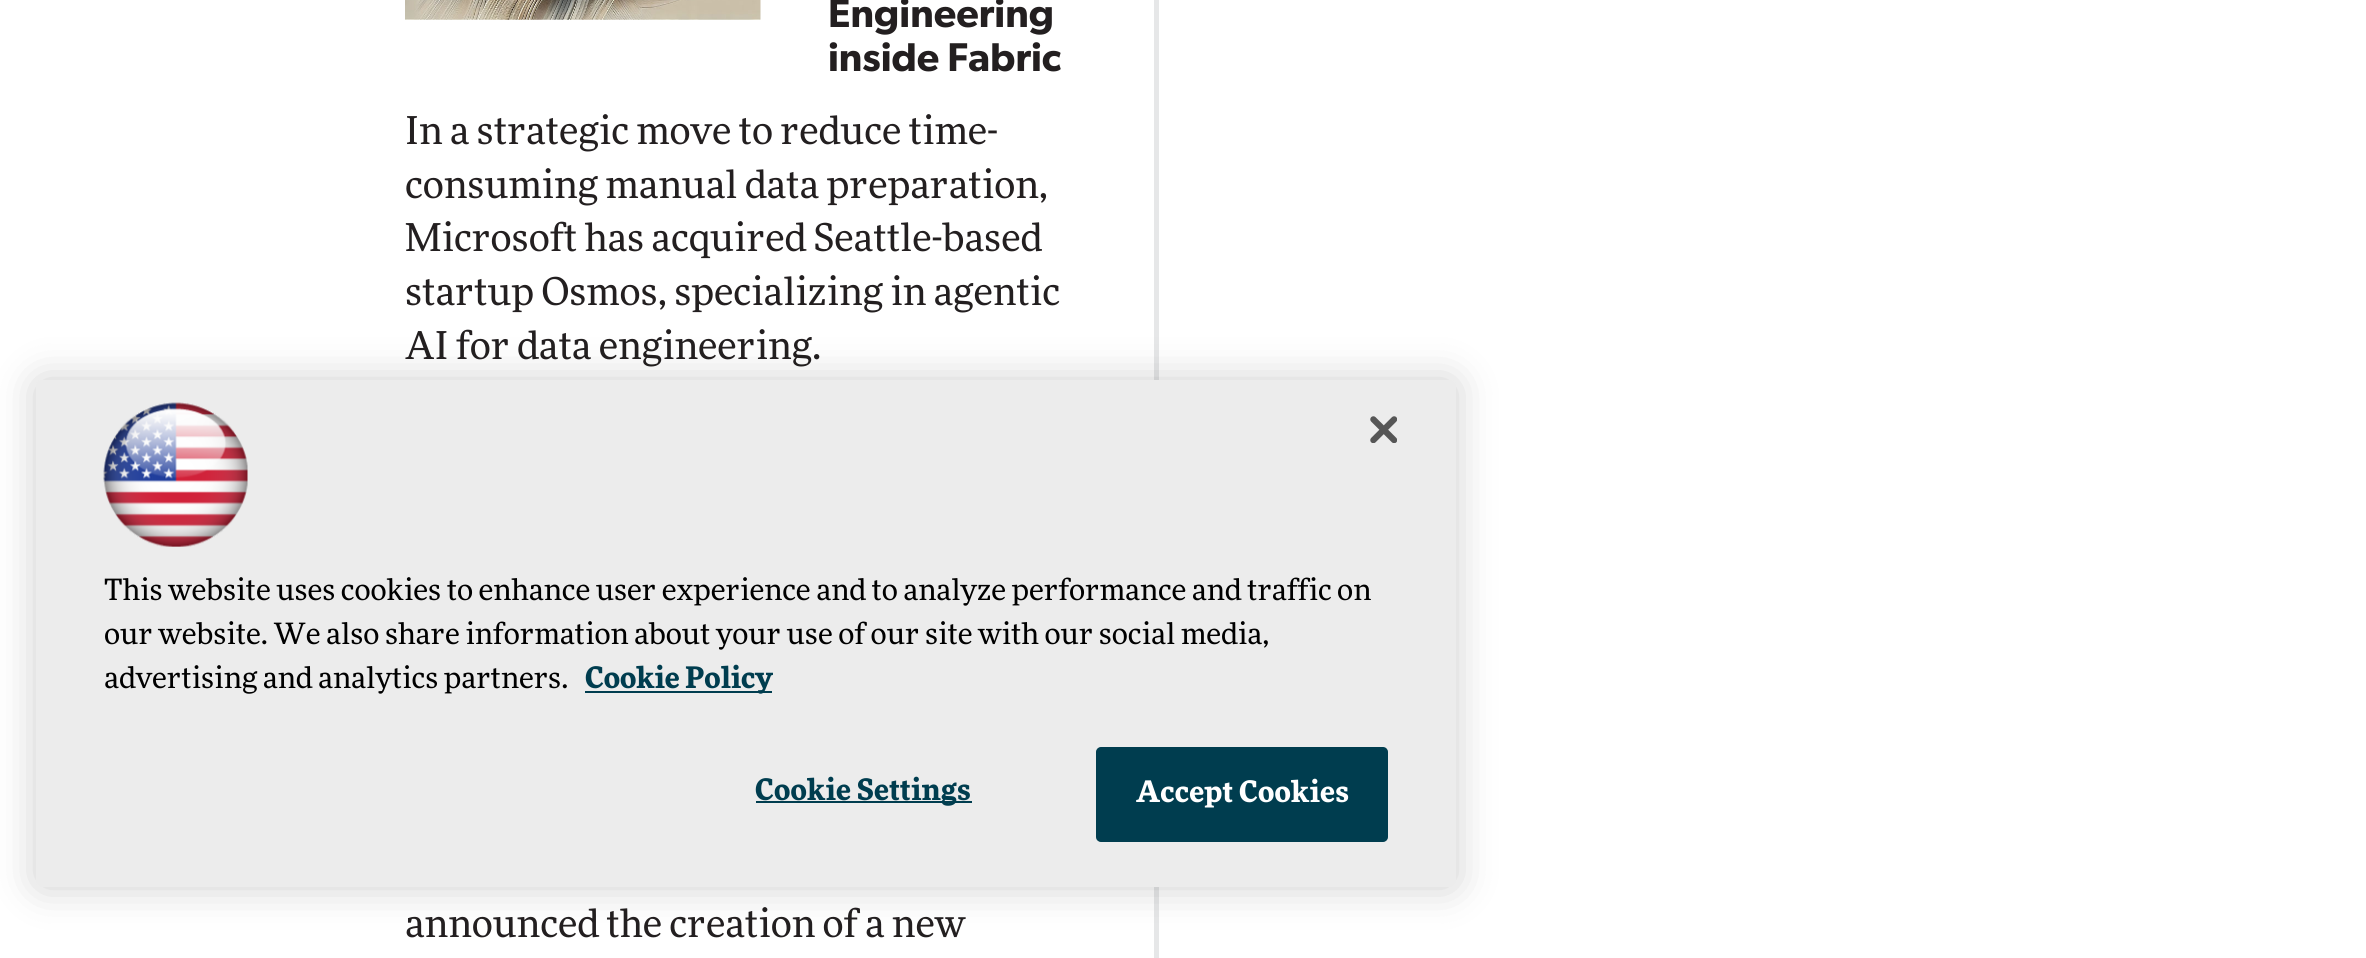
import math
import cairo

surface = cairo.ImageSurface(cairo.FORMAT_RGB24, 2366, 958)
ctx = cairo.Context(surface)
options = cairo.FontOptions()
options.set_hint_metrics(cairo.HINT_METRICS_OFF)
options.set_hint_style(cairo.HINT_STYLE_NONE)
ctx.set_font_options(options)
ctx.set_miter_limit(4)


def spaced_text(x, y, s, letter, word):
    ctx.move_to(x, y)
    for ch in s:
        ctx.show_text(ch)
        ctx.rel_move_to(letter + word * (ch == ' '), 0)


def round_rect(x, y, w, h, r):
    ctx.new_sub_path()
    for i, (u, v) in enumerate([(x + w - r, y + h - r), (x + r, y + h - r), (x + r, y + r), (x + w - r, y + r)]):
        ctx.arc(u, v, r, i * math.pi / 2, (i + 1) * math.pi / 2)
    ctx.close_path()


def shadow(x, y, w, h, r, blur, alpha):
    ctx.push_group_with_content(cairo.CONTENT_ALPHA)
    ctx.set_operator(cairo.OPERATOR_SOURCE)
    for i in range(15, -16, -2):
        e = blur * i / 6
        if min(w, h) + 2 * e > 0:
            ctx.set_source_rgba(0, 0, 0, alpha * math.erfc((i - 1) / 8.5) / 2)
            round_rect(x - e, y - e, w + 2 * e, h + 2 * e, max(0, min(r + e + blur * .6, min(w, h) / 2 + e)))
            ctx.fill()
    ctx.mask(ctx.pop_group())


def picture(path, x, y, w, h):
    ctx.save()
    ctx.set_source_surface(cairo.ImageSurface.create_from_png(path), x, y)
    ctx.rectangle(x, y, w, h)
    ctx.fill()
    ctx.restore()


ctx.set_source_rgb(1, 1, 1)
ctx.paint()
picture("img1.png", 405, 0, 356, 20)
ctx.select_font_face("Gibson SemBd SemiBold")
ctx.set_font_size(40.25)
ctx.set_source_rgb(0.137, 0.122, 0.125)
ctx.move_to(828, 27)
ctx.show_text("Engineering")
ctx.move_to(828, 71)
ctx.show_text("inside Fabric")
ctx.select_font_face("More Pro")
ctx.set_font_size(38.25)
ctx.move_to(405, 144)
ctx.show_text("In a strategic move to reduce time-")
ctx.move_to(405, 198)
ctx.show_text("consuming manual data preparation,")
ctx.move_to(405, 251)
ctx.show_text("Microsoft has acquired Seattle-based")
ctx.move_to(405, 305)
ctx.show_text("startup Osmos, specializing in agentic")
ctx.move_to(405, 359)
ctx.show_text("AI for data engineering.")
ctx.move_to(405, 937)
ctx.show_text("announced the creation of a new")
ctx.set_source_rgb(0.902, 0.906, 0.91)
ctx.rectangle(1154, 0, 5, 958)
ctx.fill()
ctx.set_source_rgb(0, 0, 0)
shadow(36, 380, 1420, 507, 6, 20, 0.2)
ctx.set_source_rgb(0.922, 0.922, 0.922)
round_rect(36, 380, 1420, 507, 6)
ctx.fill()
picture("img2.png", 1370, 416, 27, 27)
picture("img3.png", 103, 402, 145, 145)
ctx.set_font_size(29.25)
ctx.set_source_rgb(0, 0, 0)
ctx.move_to(104, 600)
ctx.show_text("This website uses cookies to enhance user experience and to analyze performance and traffic on")
ctx.move_to(104, 644)
ctx.show_text("our website. We also share information about your use of our site with our social media,")
ctx.move_to(104, 688)
ctx.show_text("advertising and analytics partners.")
ctx.set_source_rgb(0, 0.239, 0.31)
ctx.rectangle(585, 691, 187, 2)
ctx.fill()
ctx.select_font_face("More Pro", cairo.FONT_SLANT_NORMAL, cairo.FONT_WEIGHT_BOLD)
ctx.move_to(585, 688)
ctx.show_text("Cookie Policy")
ctx.rectangle(756, 801, 216, 2)
ctx.fill()
spaced_text(755, 800, "Cookie Settings", 0.25, 0)
round_rect(1097, 748, 290, 93, 4)
ctx.fill_preserve()
ctx.stroke()
ctx.set_source_rgb(1, 1, 1)
spaced_text(1136, 802, "Accept Cookies", 0.25, 0)
surface.write_to_png("page.png")
